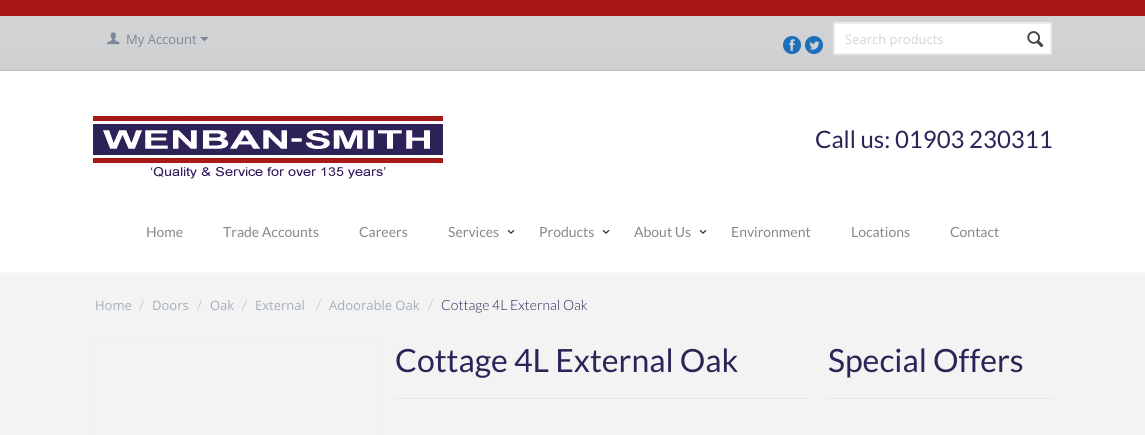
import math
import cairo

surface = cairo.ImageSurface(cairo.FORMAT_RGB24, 1145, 435)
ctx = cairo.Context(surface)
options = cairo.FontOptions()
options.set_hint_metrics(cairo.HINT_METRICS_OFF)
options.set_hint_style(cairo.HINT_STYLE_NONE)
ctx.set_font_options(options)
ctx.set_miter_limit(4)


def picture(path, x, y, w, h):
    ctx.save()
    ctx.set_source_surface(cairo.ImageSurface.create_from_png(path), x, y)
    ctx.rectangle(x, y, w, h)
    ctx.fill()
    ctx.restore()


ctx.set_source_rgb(1, 1, 1)
ctx.paint()
ctx.set_source_rgb(0.659, 0.098, 0.086)
ctx.rectangle(0, 0, 1145, 16)
ctx.fill()
gradient = cairo.LinearGradient(573, 16, 573, 70)
gradient.add_color_stop_rgba(0, 0.82, 0.824, 0.831, 1)
gradient.add_color_stop_rgba(1, 0.816, 0.82, 0.824, 1)
ctx.set_source(gradient)
ctx.rectangle(0, 16, 1145, 54)
ctx.fill()
ctx.set_source_rgb(0.737, 0.737, 0.737)
ctx.rectangle(0, 70, 1145, 1)
ctx.fill()
picture("img1.png", 107, 32, 13, 13)
ctx.select_font_face("Open Sans")
ctx.set_font_size(13)
ctx.set_source_rgb(0.478, 0.537, 0.596)
ctx.move_to(126, 44)
ctx.show_text("My Account")
ctx.new_path()
ctx.move_to(204.5, 41.5)
ctx.line_to(200, 37)
ctx.line_to(208.5, 37)
ctx.close_path()
ctx.fill()
picture("img2.png", 783, 36, 18, 18)
picture("img3.png", 805, 36, 18, 18)
ctx.set_source_rgb(1, 1, 1)
ctx.rectangle(834, 23, 217, 31)
ctx.fill_preserve()
ctx.set_source_rgb(0.918, 0.918, 0.922)
ctx.stroke()
ctx.set_source_rgb(0.831, 0.831, 0.831)
ctx.move_to(845, 44)
ctx.show_text("Search products")
picture("img4.png", 1027, 31, 17, 17)
ctx.set_source_rgb(0.965, 0.965, 0.965)
ctx.rectangle(0, 272, 1145, 4)
ctx.fill()
picture("img5.png", 93, 116, 350, 63)
ctx.select_font_face("Lato")
ctx.set_font_size(24)
ctx.set_source_rgb(0.176, 0.137, 0.341)
ctx.move_to(815, 148)
ctx.show_text("Call us: 01903 230311")
ctx.set_font_size(14)
ctx.set_source_rgb(0.529, 0.529, 0.525)
ctx.move_to(146, 237)
ctx.show_text("Home")
ctx.move_to(223, 237)
ctx.show_text("Trade Accounts")
ctx.move_to(359, 237)
ctx.show_text("Careers")
picture("img6.png", 507, 230, 8, 4)
ctx.move_to(448, 237)
ctx.show_text("Services")
picture("img6.png", 602, 230, 8, 4)
ctx.move_to(539, 237)
ctx.show_text("Products")
picture("img6.png", 699, 230, 8, 4)
ctx.move_to(634, 237)
ctx.show_text("About Us")
ctx.move_to(731, 237)
ctx.show_text("Environment")
ctx.move_to(851, 237)
ctx.show_text("Locations")
ctx.move_to(950, 237)
ctx.show_text("Contact")
ctx.set_source_rgb(0.953, 0.953, 0.957)
ctx.rectangle(0, 276, 1145, 159)
ctx.fill()
ctx.select_font_face("Open Sans")
ctx.set_font_size(13)
ctx.set_source_rgb(0.647, 0.686, 0.725)
ctx.move_to(95, 310)
ctx.show_text("Home")
ctx.select_font_face("Lato Light")
ctx.set_font_size(14)
ctx.move_to(139, 310)
ctx.show_text("/")
ctx.select_font_face("Open Sans")
ctx.set_font_size(13)
ctx.move_to(152, 310)
ctx.show_text("Doors")
ctx.select_font_face("Lato Light")
ctx.set_font_size(14)
ctx.move_to(197, 310)
ctx.show_text("/")
ctx.select_font_face("Open Sans")
ctx.set_font_size(13)
ctx.move_to(210, 310)
ctx.show_text("Oak")
ctx.select_font_face("Lato Light")
ctx.set_font_size(14)
ctx.move_to(242, 310)
ctx.show_text("/")
ctx.select_font_face("Open Sans")
ctx.set_font_size(13)
ctx.move_to(255, 310)
ctx.show_text("External")
ctx.select_font_face("Lato Light")
ctx.set_font_size(14)
ctx.move_to(316, 310)
ctx.show_text("/")
ctx.select_font_face("Open Sans")
ctx.set_font_size(13)
ctx.move_to(329, 310)
ctx.show_text("Adoorable Oak")
ctx.select_font_face("Lato Light")
ctx.set_font_size(14)
ctx.move_to(428, 310)
ctx.show_text("/")
ctx.set_source_rgb(0.176, 0.137, 0.341)
ctx.move_to(441, 310)
ctx.show_text("Cottage 4L External Oak")
ctx.rectangle(93.5, 343.5, 283, 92)
ctx.set_source_rgb(0.929, 0.937, 0.945)
ctx.set_line_width(1)
ctx.stroke()
ctx.set_source_rgb(0.906, 0.906, 0.906)
ctx.rectangle(395, 398, 412, 1)
ctx.fill()
ctx.select_font_face("Lato")
ctx.set_font_size(32)
ctx.set_source_rgb(0.176, 0.137, 0.341)
ctx.move_to(395, 372)
ctx.show_text("Cottage 4L External Oak")
ctx.set_source_rgb(0.906, 0.906, 0.906)
ctx.rectangle(828, 398, 224, 1)
ctx.fill()
ctx.set_source_rgb(0.176, 0.137, 0.341)
ctx.move_to(828, 372)
ctx.show_text("Special Offers")
surface.write_to_png("page.png")
